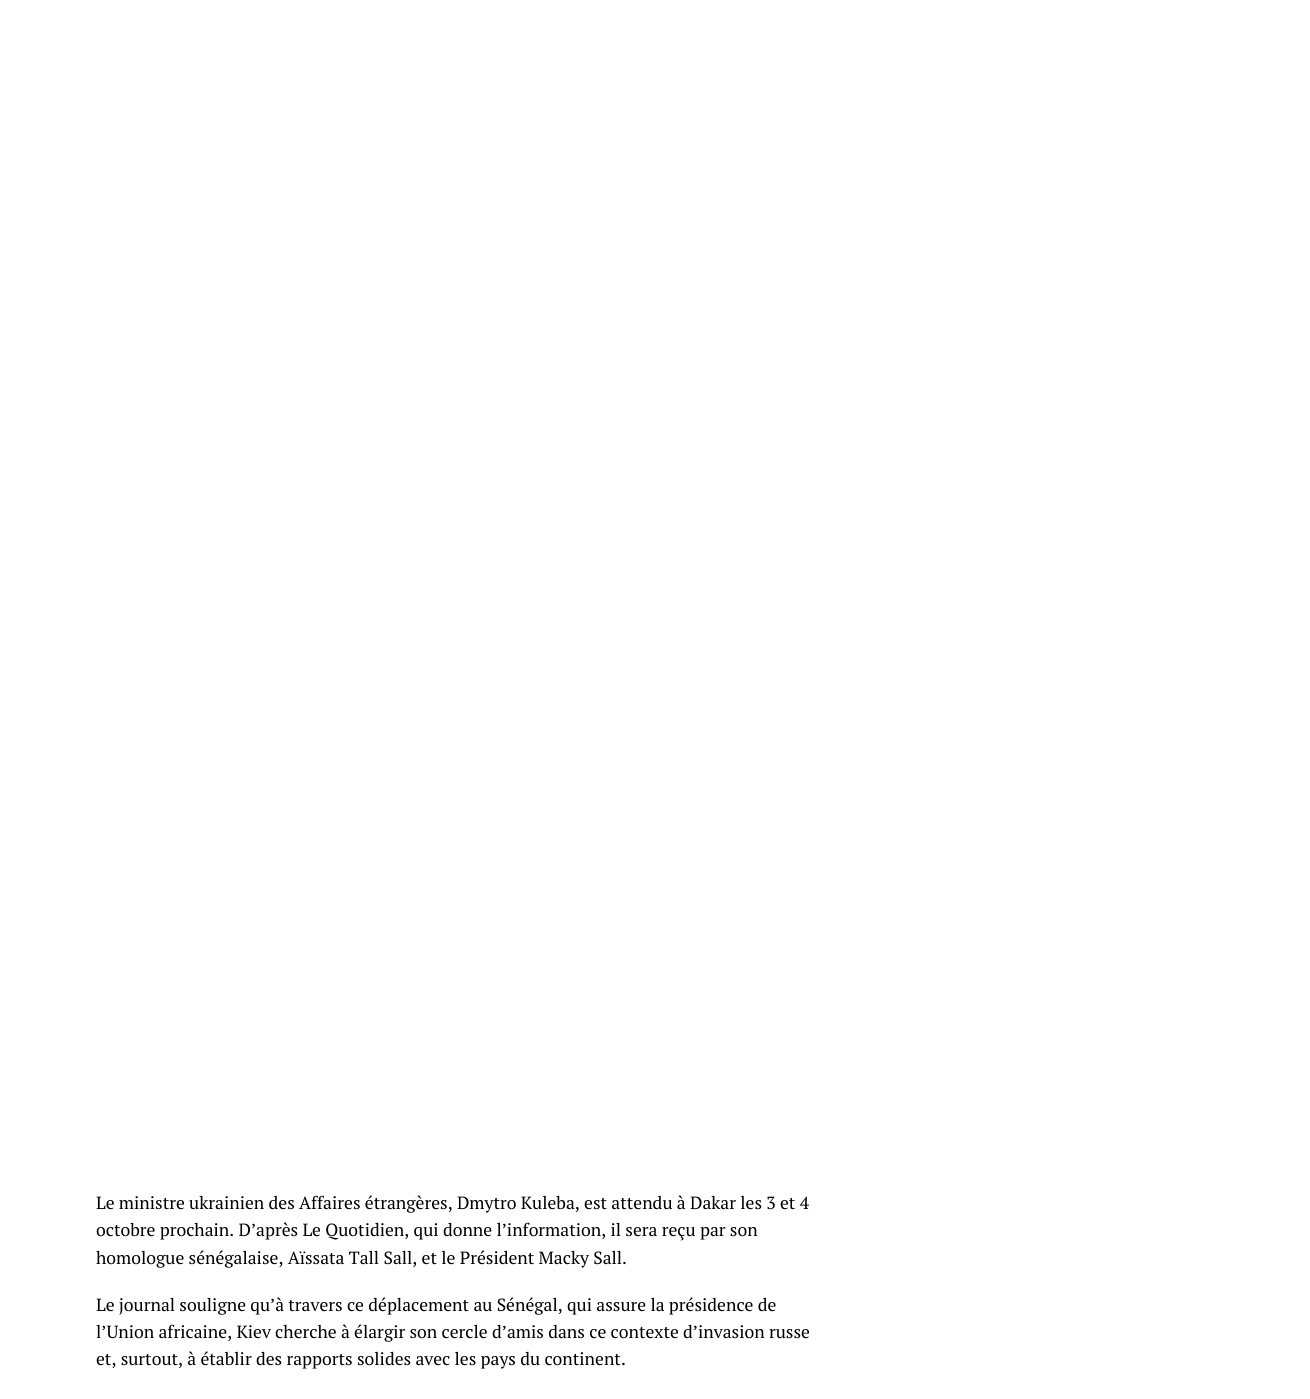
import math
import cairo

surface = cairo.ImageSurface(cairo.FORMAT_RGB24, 1310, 1399)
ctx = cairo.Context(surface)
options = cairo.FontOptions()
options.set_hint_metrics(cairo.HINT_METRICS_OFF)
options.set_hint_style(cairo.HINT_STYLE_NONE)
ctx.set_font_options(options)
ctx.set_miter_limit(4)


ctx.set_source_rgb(1, 1, 1)
ctx.paint()
ctx.select_font_face("PT Serif")
ctx.set_font_size(17.6)
ctx.set_source_rgb(0, 0, 0)
ctx.move_to(96, 1209)
ctx.show_text("Le ministre ukrainien des Affaires étrangères, Dmytro Kuleba, est attendu à Dakar les 3 et 4")
ctx.move_to(96, 1236)
ctx.show_text("octobre prochain. D’après Le Quotidien, qui donne l’information, il sera reçu par son")
ctx.move_to(96, 1264)
ctx.show_text("homologue sénégalaise, Aïssata Tall Sall, et le Président Macky Sall.")
ctx.move_to(96, 1311)
ctx.show_text("Le journal souligne qu’à travers ce déplacement au Sénégal, qui assure la présidence de")
ctx.move_to(96, 1338)
ctx.show_text("l’Union africaine, Kiev cherche à élargir son cercle d’amis dans ce contexte d’invasion russe")
ctx.move_to(96, 1365)
ctx.show_text("et, surtout, à établir des rapports solides avec les pays du continent.")
surface.write_to_png("page.png")
